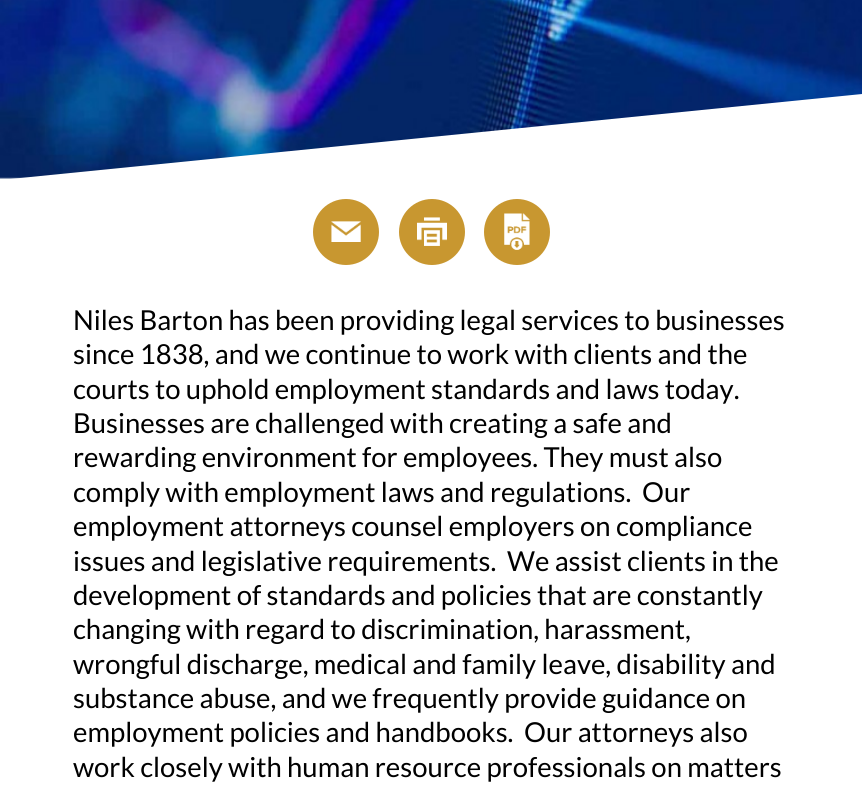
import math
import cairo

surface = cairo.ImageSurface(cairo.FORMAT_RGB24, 862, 792)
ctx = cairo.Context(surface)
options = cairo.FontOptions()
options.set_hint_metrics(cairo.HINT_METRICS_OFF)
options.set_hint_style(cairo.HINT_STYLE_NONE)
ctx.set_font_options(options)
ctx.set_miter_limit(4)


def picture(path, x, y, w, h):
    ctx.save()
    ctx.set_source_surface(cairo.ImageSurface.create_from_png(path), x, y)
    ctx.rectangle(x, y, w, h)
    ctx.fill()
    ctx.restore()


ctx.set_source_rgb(1, 1, 1)
ctx.paint()
picture("img1.png", 0, 0, 862, 179)
ctx.set_source_rgb(1, 1, 1)
ctx.new_path()
ctx.move_to(0, 180)
ctx.line_to(862, 94)
ctx.line_to(862, 180)
ctx.close_path()
ctx.fill()
ctx.set_source_rgb(0.784, 0.592, 0.188)
ctx.arc(346, 232, 33, 0, 2 * math.pi)
ctx.fill()
picture("img2.png", 331, 221, 30, 21)
ctx.arc(432, 232, 33, 0, 2 * math.pi)
ctx.fill()
picture("img3.png", 417, 217, 30, 29)
ctx.arc(517, 232, 33, 0, 2 * math.pi)
ctx.fill()
picture("img4.png", 504, 213, 26, 37)
ctx.select_font_face("Lato")
ctx.set_font_size(27.5)
ctx.set_source_rgb(0, 0, 0)
ctx.move_to(73, 330)
ctx.show_text("Niles Barton has been providing legal services to businesses")
ctx.move_to(73, 364)
ctx.show_text("since 1838, and we continue to work with clients and the")
ctx.move_to(73, 399)
ctx.show_text("courts to uphold employment standards and laws today.")
ctx.move_to(73, 433)
ctx.show_text("Businesses are challenged with creating a safe and")
ctx.move_to(73, 467)
ctx.show_text("rewarding environment for employees. They must also")
ctx.move_to(73, 502)
ctx.show_text("comply with employment laws and regulations.  Our")
ctx.move_to(73, 536)
ctx.show_text("employment attorneys counsel employers on compliance")
ctx.move_to(73, 571)
ctx.show_text("issues and legislative requirements.  We assist clients in the")
ctx.move_to(73, 605)
ctx.show_text("development of standards and policies that are constantly")
ctx.move_to(73, 639)
ctx.show_text("changing with regard to discrimination, harassment,")
ctx.move_to(73, 674)
ctx.show_text("wrongful discharge, medical and family leave, disability and")
ctx.move_to(73, 708)
ctx.show_text("substance abuse, and we frequently provide guidance on")
ctx.move_to(73, 742)
ctx.show_text("employment policies and handbooks.  Our attorneys also")
ctx.move_to(73, 777)
ctx.show_text("work closely with human resource professionals on matters")
surface.write_to_png("page.png")
